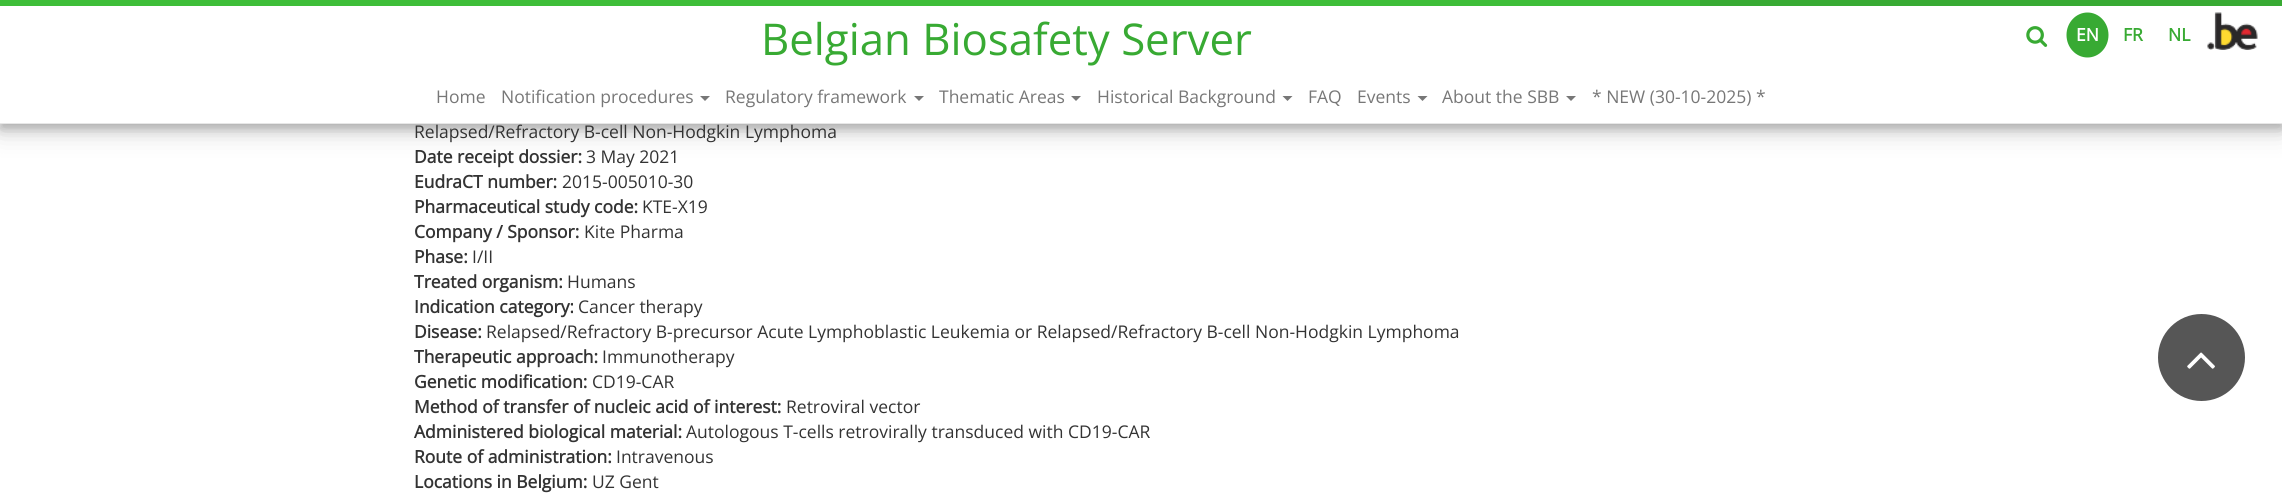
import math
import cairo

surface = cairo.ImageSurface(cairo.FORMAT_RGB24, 2282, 495)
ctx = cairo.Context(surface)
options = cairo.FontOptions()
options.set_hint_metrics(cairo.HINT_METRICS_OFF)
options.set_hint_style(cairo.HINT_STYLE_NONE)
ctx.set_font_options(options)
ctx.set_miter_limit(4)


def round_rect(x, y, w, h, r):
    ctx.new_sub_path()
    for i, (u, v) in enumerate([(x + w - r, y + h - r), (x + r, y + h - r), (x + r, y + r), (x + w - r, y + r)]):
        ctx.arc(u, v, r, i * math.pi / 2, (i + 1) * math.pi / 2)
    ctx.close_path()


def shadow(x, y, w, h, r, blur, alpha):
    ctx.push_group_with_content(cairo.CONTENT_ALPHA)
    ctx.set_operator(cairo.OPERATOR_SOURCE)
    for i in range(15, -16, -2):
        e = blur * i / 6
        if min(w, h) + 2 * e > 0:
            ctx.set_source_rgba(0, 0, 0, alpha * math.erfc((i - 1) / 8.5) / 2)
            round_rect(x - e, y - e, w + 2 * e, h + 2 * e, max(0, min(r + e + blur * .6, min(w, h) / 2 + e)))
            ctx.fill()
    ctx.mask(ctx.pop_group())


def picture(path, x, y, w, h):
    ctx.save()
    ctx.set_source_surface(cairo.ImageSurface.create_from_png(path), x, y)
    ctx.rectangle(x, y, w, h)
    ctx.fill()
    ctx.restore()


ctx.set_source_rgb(1, 1, 1)
ctx.paint()
ctx.set_source_rgb(0, 0, 0)
shadow(0, 8, 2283, 123, 0, 12.5, 0.19)
shadow(0, 5, 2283, 124, 0, 5, 0.2)
ctx.set_source_rgb(1, 1, 1)
ctx.rectangle(0, 6, 2282, 117)
ctx.fill()
ctx.set_source_rgb(0.906, 0.906, 0.906)
ctx.rectangle(0, 123, 2282, 1)
ctx.fill()
ctx.set_source_rgb(0.22, 0.667, 0.2)
ctx.rectangle(1700, 0, 582, 6)
ctx.fill()
ctx.set_source_rgb(0.243, 0.745, 0.224)
ctx.rectangle(0, 0, 1700, 6)
ctx.fill()
ctx.select_font_face("Open Sans")
ctx.set_font_size(43.75)
ctx.set_source_rgb(0.22, 0.667, 0.2)
ctx.move_to(761, 55)
ctx.show_text("Belgian Biosafety Server")
picture("img1.png", 2026, 26, 22, 21)
ctx.new_path()
ctx.move_to(2087.5, 12.5)
ctx.curve_to(2099, 12.5, 2108.5, 22.5, 2108.5, 35)
ctx.curve_to(2108.5, 47.5, 2099, 57.5, 2087.5, 57.5)
ctx.curve_to(2076, 57.5, 2066.5, 47.5, 2066.5, 35)
ctx.curve_to(2066.5, 22.5, 2076, 12.5, 2087.5, 12.5)
ctx.close_path()
ctx.fill()
ctx.select_font_face("Open Sans", cairo.FONT_SLANT_NORMAL, cairo.FONT_WEIGHT_BOLD)
ctx.set_font_size(17.5)
ctx.set_source_rgb(1, 1, 1)
ctx.move_to(2076, 41)
ctx.show_text("EN")
ctx.set_source_rgb(0.22, 0.667, 0.2)
ctx.move_to(2123, 41)
ctx.show_text("FR")
ctx.move_to(2168, 41)
ctx.show_text("NL")
picture("img2.png", 2207, 12, 51, 38)
ctx.select_font_face("Open Sans")
ctx.set_source_rgb(0.467, 0.467, 0.467)
ctx.move_to(436, 103)
ctx.show_text("Home")
ctx.move_to(501, 103)
ctx.show_text("Notification procedures")
ctx.new_path()
ctx.move_to(700, 96)
ctx.line_to(710, 96)
ctx.line_to(705, 101)
ctx.close_path()
ctx.fill()
ctx.move_to(725, 103)
ctx.show_text("Regulatory framework")
ctx.new_path()
ctx.move_to(914, 96)
ctx.line_to(924, 96)
ctx.line_to(919, 101)
ctx.close_path()
ctx.fill()
ctx.move_to(939, 103)
ctx.show_text("Thematic Areas")
ctx.new_path()
ctx.move_to(1071, 96)
ctx.line_to(1081, 96)
ctx.line_to(1076, 101)
ctx.close_path()
ctx.fill()
ctx.move_to(1097, 103)
ctx.show_text("Historical Background")
ctx.new_path()
ctx.move_to(1282.5, 96)
ctx.line_to(1292.5, 96)
ctx.line_to(1287.5, 101)
ctx.close_path()
ctx.fill()
ctx.move_to(1308, 103)
ctx.show_text("FAQ")
ctx.move_to(1357, 103)
ctx.show_text("Events")
ctx.new_path()
ctx.move_to(1417.5, 96)
ctx.line_to(1427.5, 96)
ctx.line_to(1422.5, 101)
ctx.close_path()
ctx.fill()
ctx.move_to(1442, 103)
ctx.show_text("About the SBB")
ctx.new_path()
ctx.move_to(1566, 96)
ctx.line_to(1576, 96)
ctx.line_to(1571, 101)
ctx.close_path()
ctx.fill()
ctx.move_to(1592, 103)
ctx.show_text("* NEW (30-10-2025) *")
ctx.set_source_rgb(0.2, 0.2, 0.2)
ctx.move_to(414, 138)
ctx.show_text("Relapsed/Refractory B-cell Non-Hodgkin Lymphoma")
ctx.select_font_face("Open Sans", cairo.FONT_SLANT_NORMAL, cairo.FONT_WEIGHT_BOLD)
ctx.move_to(414, 163)
ctx.show_text("Date receipt dossier:")
ctx.select_font_face("Open Sans")
ctx.move_to(586, 163)
ctx.show_text("3 May 2021")
ctx.select_font_face("Open Sans", cairo.FONT_SLANT_NORMAL, cairo.FONT_WEIGHT_BOLD)
ctx.move_to(414, 188)
ctx.show_text("EudraCT number:")
ctx.select_font_face("Open Sans")
ctx.move_to(562, 188)
ctx.show_text("2015-005010-30")
ctx.select_font_face("Open Sans", cairo.FONT_SLANT_NORMAL, cairo.FONT_WEIGHT_BOLD)
ctx.move_to(414, 213)
ctx.show_text("Pharmaceutical study code:")
ctx.select_font_face("Open Sans")
ctx.move_to(642, 213)
ctx.show_text("KTE-X19")
ctx.select_font_face("Open Sans", cairo.FONT_SLANT_NORMAL, cairo.FONT_WEIGHT_BOLD)
ctx.move_to(414, 238)
ctx.show_text("Company / Sponsor:")
ctx.select_font_face("Open Sans")
ctx.move_to(584, 238)
ctx.show_text("Kite Pharma")
ctx.select_font_face("Open Sans", cairo.FONT_SLANT_NORMAL, cairo.FONT_WEIGHT_BOLD)
ctx.move_to(414, 263)
ctx.show_text("Phase:")
ctx.select_font_face("Open Sans")
ctx.move_to(472, 263)
ctx.show_text("I/II")
ctx.select_font_face("Open Sans", cairo.FONT_SLANT_NORMAL, cairo.FONT_WEIGHT_BOLD)
ctx.move_to(414, 288)
ctx.show_text("Treated organism:")
ctx.select_font_face("Open Sans")
ctx.move_to(567, 288)
ctx.show_text("Humans")
ctx.select_font_face("Open Sans", cairo.FONT_SLANT_NORMAL, cairo.FONT_WEIGHT_BOLD)
ctx.move_to(414, 313)
ctx.show_text("Indication category:")
ctx.select_font_face("Open Sans")
ctx.move_to(578, 313)
ctx.show_text("Cancer therapy")
ctx.select_font_face("Open Sans", cairo.FONT_SLANT_NORMAL, cairo.FONT_WEIGHT_BOLD)
ctx.move_to(414, 338)
ctx.show_text("Disease:")
ctx.select_font_face("Open Sans")
ctx.move_to(486, 338)
ctx.show_text("Relapsed/Refractory B-precursor Acute Lymphoblastic Leukemia or Relapsed/Refractory B-cell Non-Hodgkin Lymphoma")
ctx.select_font_face("Open Sans", cairo.FONT_SLANT_NORMAL, cairo.FONT_WEIGHT_BOLD)
ctx.move_to(414, 363)
ctx.show_text("Therapeutic approach:")
ctx.select_font_face("Open Sans")
ctx.move_to(602, 363)
ctx.show_text("Immunotherapy")
ctx.select_font_face("Open Sans", cairo.FONT_SLANT_NORMAL, cairo.FONT_WEIGHT_BOLD)
ctx.move_to(414, 388)
ctx.show_text("Genetic modification:")
ctx.select_font_face("Open Sans")
ctx.move_to(592, 388)
ctx.show_text("CD19-CAR")
ctx.select_font_face("Open Sans", cairo.FONT_SLANT_NORMAL, cairo.FONT_WEIGHT_BOLD)
ctx.move_to(414, 413)
ctx.show_text("Method of transfer of nucleic acid of interest:")
ctx.select_font_face("Open Sans")
ctx.move_to(786, 413)
ctx.show_text("Retroviral vector")
ctx.select_font_face("Open Sans", cairo.FONT_SLANT_NORMAL, cairo.FONT_WEIGHT_BOLD)
ctx.move_to(414, 438)
ctx.show_text("Administered biological material:")
ctx.select_font_face("Open Sans")
ctx.move_to(686, 438)
ctx.show_text("Autologous T-cells retrovirally transduced with CD19-CAR")
ctx.select_font_face("Open Sans", cairo.FONT_SLANT_NORMAL, cairo.FONT_WEIGHT_BOLD)
ctx.move_to(414, 463)
ctx.show_text("Route of administration:")
ctx.select_font_face("Open Sans")
ctx.move_to(616, 463)
ctx.show_text("Intravenous")
ctx.select_font_face("Open Sans", cairo.FONT_SLANT_NORMAL, cairo.FONT_WEIGHT_BOLD)
ctx.move_to(414, 488)
ctx.show_text("Locations in Belgium:")
ctx.select_font_face("Open Sans")
ctx.move_to(592, 488)
ctx.show_text("UZ Gent")
ctx.set_source_rgb(0.337, 0.337, 0.337)
ctx.new_path()
ctx.arc(2201.5, 357.5, 43.5, 0, 2 * math.pi)
ctx.fill()
picture("img3.png", 2187, 352, 28, 17)
surface.write_to_png("page.png")
